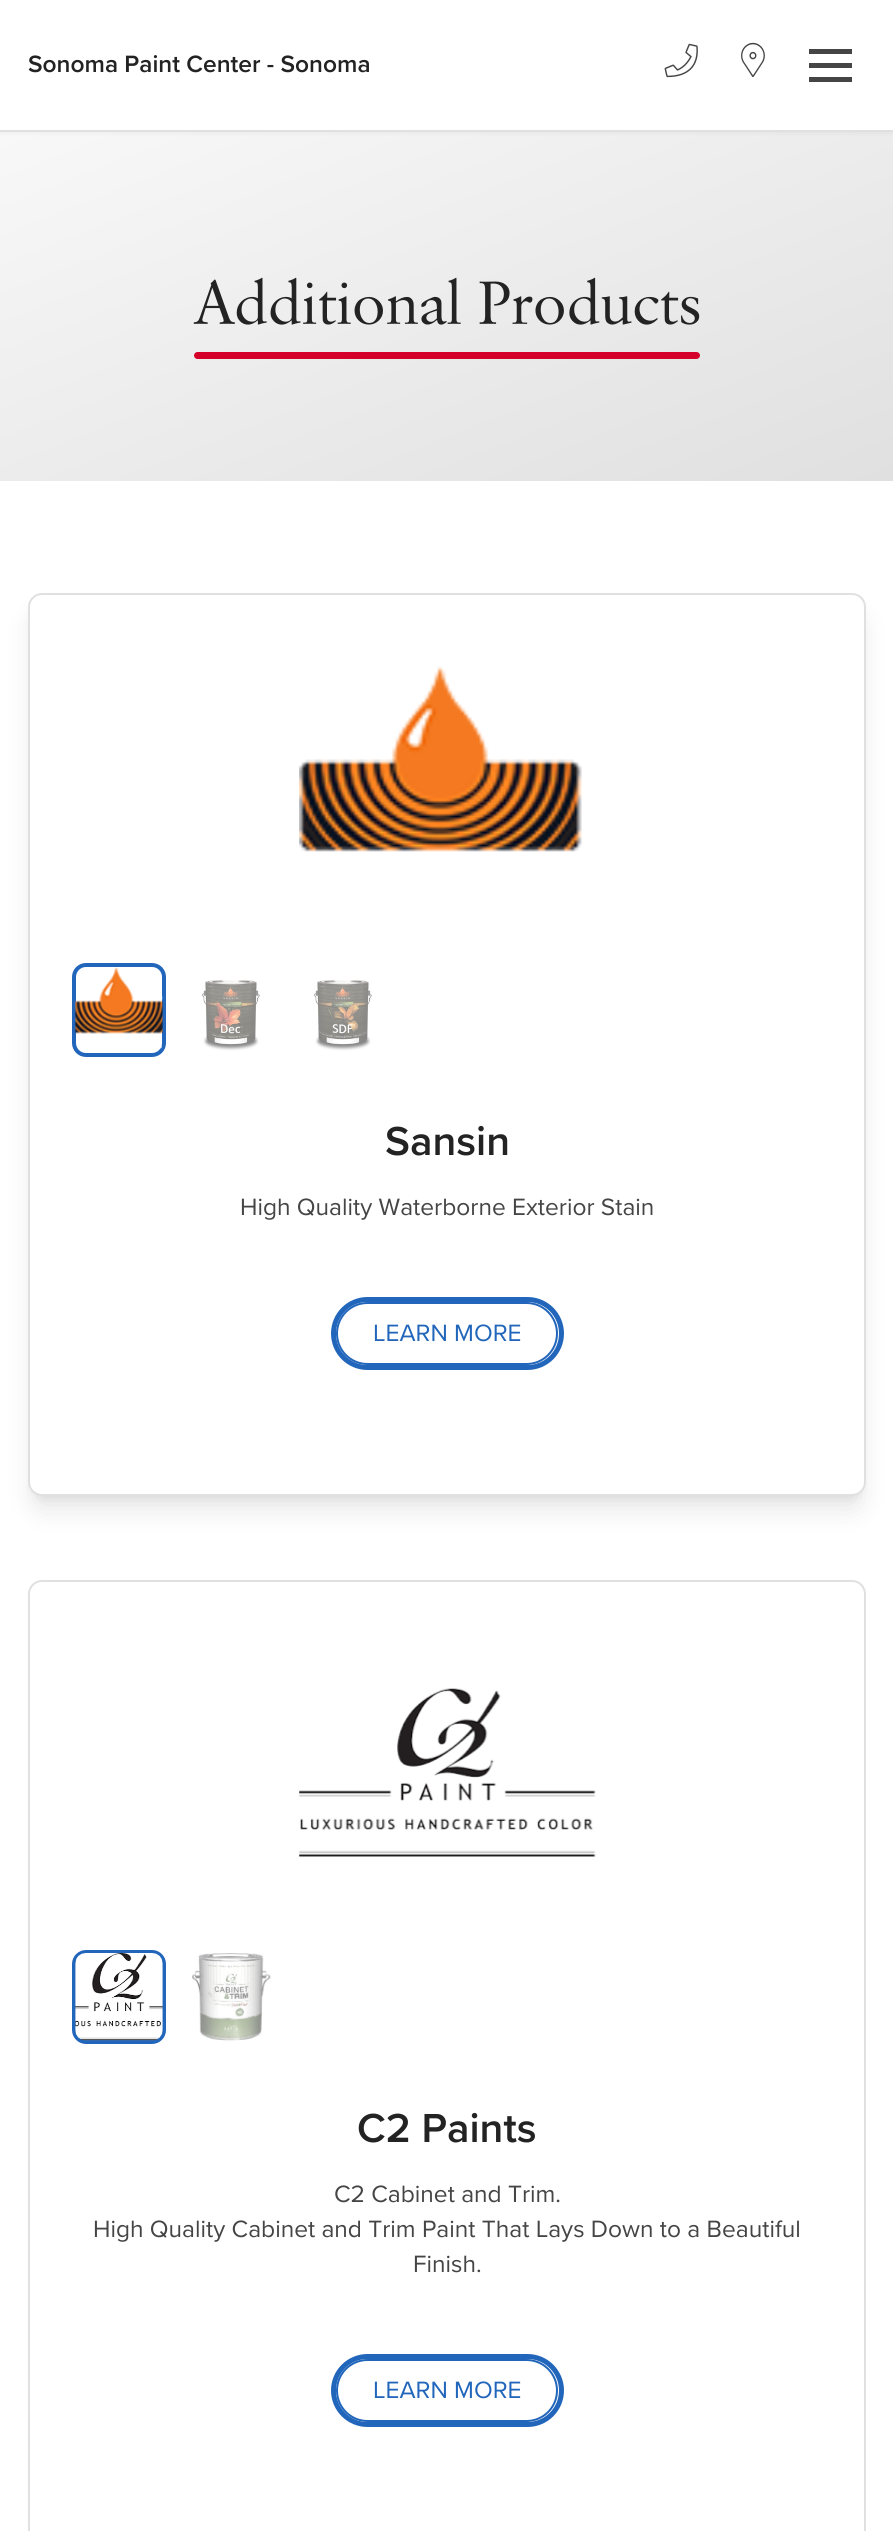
import math
import cairo

surface = cairo.ImageSurface(cairo.FORMAT_RGB24, 893, 2531)
ctx = cairo.Context(surface)
options = cairo.FontOptions()
options.set_hint_metrics(cairo.HINT_METRICS_OFF)
options.set_hint_style(cairo.HINT_STYLE_NONE)
ctx.set_font_options(options)
ctx.set_miter_limit(4)


def round_rect(x, y, w, h, r):
    ctx.new_sub_path()
    for i, (u, v) in enumerate([(x + w - r, y + h - r), (x + r, y + h - r), (x + r, y + r), (x + w - r, y + r)]):
        ctx.arc(u, v, r, i * math.pi / 2, (i + 1) * math.pi / 2)
    ctx.close_path()


def shadow(x, y, w, h, r, blur, alpha):
    ctx.push_group_with_content(cairo.CONTENT_ALPHA)
    ctx.set_operator(cairo.OPERATOR_SOURCE)
    for i in range(15, -16, -2):
        e = blur * i / 6
        if min(w, h) + 2 * e > 0:
            ctx.set_source_rgba(0, 0, 0, alpha * math.erfc((i - 1) / 8.5) / 2)
            round_rect(x - e, y - e, w + 2 * e, h + 2 * e, max(0, min(r + e + blur * .6, min(w, h) / 2 + e)))
            ctx.fill()
    ctx.mask(ctx.pop_group())


def picture(path, x, y, w, h):
    ctx.save()
    ctx.set_source_surface(cairo.ImageSurface.create_from_png(path), x, y)
    ctx.rectangle(x, y, w, h)
    ctx.fill()
    ctx.restore()


ctx.set_source_rgb(1, 1, 1)
ctx.paint()
gradient = cairo.LinearGradient(328, 2.7, 566, 610)
gradient.add_color_stop_rgba(0, 0.973, 0.973, 0.973, 1)
gradient.add_color_stop_rgba(1, 0.878, 0.878, 0.878, 1)
ctx.set_source(gradient)
ctx.rectangle(0, 132, 893, 349)
ctx.fill()
ctx.set_source_rgb(0, 0, 0)
shadow(0, 2, 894, 131, 0, 2, 0.05)
ctx.set_source_rgb(1, 1, 1)
ctx.rectangle(0, 0, 893, 130)
ctx.fill()
ctx.set_source_rgb(0.878, 0.878, 0.878)
ctx.rectangle(0, 130, 893, 2)
ctx.fill()
ctx.select_font_face("Proxima Nova SemiBold")
ctx.set_font_size(24.5)
ctx.set_source_rgb(0.137, 0.137, 0.137)
ctx.move_to(28, 72)
ctx.show_text("Sonoma Paint Center - Sonoma")
picture("img1.png", 664, 43, 34, 35)
picture("img2.png", 741, 42, 24, 35)
ctx.set_source_rgb(0.271, 0.271, 0.271)
ctx.rectangle(809, 63, 43, 5)
ctx.fill()
ctx.rectangle(809, 49, 43, 5)
ctx.fill()
ctx.rectangle(809, 77, 43, 5)
ctx.fill()
picture("img3.png", 193, 277, 507, 48)
ctx.set_source_rgb(0.831, 0, 0.161)
round_rect(194, 352, 506, 7, 3.5)
ctx.fill()
ctx.set_source_rgb(0, 0, 0)
shadow(35, 607, 824, 889, 7, 5, 0.1)
shadow(33, 616, 828, 893, 9, 13, 0.1)
ctx.set_source_rgb(1, 1, 1)
round_rect(29, 594, 836, 901, 13)
ctx.fill_preserve()
ctx.set_source_rgb(0.878, 0.878, 0.878)
ctx.stroke()
picture("img4.png", 299, 666, 283, 186)
round_rect(74, 965, 90, 90, 12)
ctx.set_source_rgb(0.133, 0.4, 0.733)
ctx.set_line_width(4)
ctx.stroke()
picture("img5.png", 75, 967, 88, 83)
picture("img6.png", 202, 980, 58, 71)
picture("img7.png", 314, 980, 58, 71)
ctx.set_font_size(42)
ctx.set_source_rgb(0.137, 0.137, 0.137)
ctx.move_to(385, 1155)
ctx.show_text("Sansin")
ctx.select_font_face("Proxima Nova")
ctx.set_font_size(24.5)
ctx.set_source_rgb(0.271, 0.271, 0.271)
ctx.move_to(240, 1215)
ctx.show_text("High Quality Waterborne Exterior Stain")
round_rect(337, 1303, 220, 61, 30.5)
ctx.set_source_rgb(0.133, 0.4, 0.733)
ctx.set_line_width(2)
ctx.stroke()
round_rect(333.5, 1299.5, 228, 68, 34)
ctx.set_line_width(5)
ctx.stroke()
ctx.move_to(373, 1341)
ctx.show_text("LEARN MORE")
round_rect(29, 1581, 836, 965, 13)
ctx.set_source_rgb(0.878, 0.878, 0.878)
ctx.set_line_width(2)
ctx.stroke()
picture("img8.png", 299, 1688, 297, 169)
round_rect(74, 1952, 90, 90, 12)
ctx.set_source_rgb(0.133, 0.4, 0.733)
ctx.set_line_width(4)
ctx.stroke()
picture("img9.png", 75, 1953, 88, 88)
picture("img10.png", 192, 1953, 79, 88)
ctx.select_font_face("Proxima Nova SemiBold")
ctx.set_font_size(42)
ctx.set_source_rgb(0.137, 0.137, 0.137)
ctx.move_to(357, 2142)
ctx.show_text("C2 Paints")
ctx.select_font_face("Proxima Nova")
ctx.set_font_size(24.5)
ctx.set_source_rgb(0.271, 0.271, 0.271)
ctx.move_to(334, 2202)
ctx.show_text("C2 Cabinet and Trim.")
ctx.move_to(93, 2237)
ctx.show_text("High Quality Cabinet and Trim Paint That Lays Down to a Beautiful")
ctx.move_to(413, 2272)
ctx.show_text("Finish.")
round_rect(337, 2360, 220, 61, 30.5)
ctx.set_source_rgb(0.133, 0.4, 0.733)
ctx.set_line_width(2)
ctx.stroke()
round_rect(333.5, 2356.5, 228, 68, 34)
ctx.set_line_width(5)
ctx.stroke()
ctx.move_to(373, 2398)
ctx.show_text("LEARN MORE")
surface.write_to_png("page.png")
